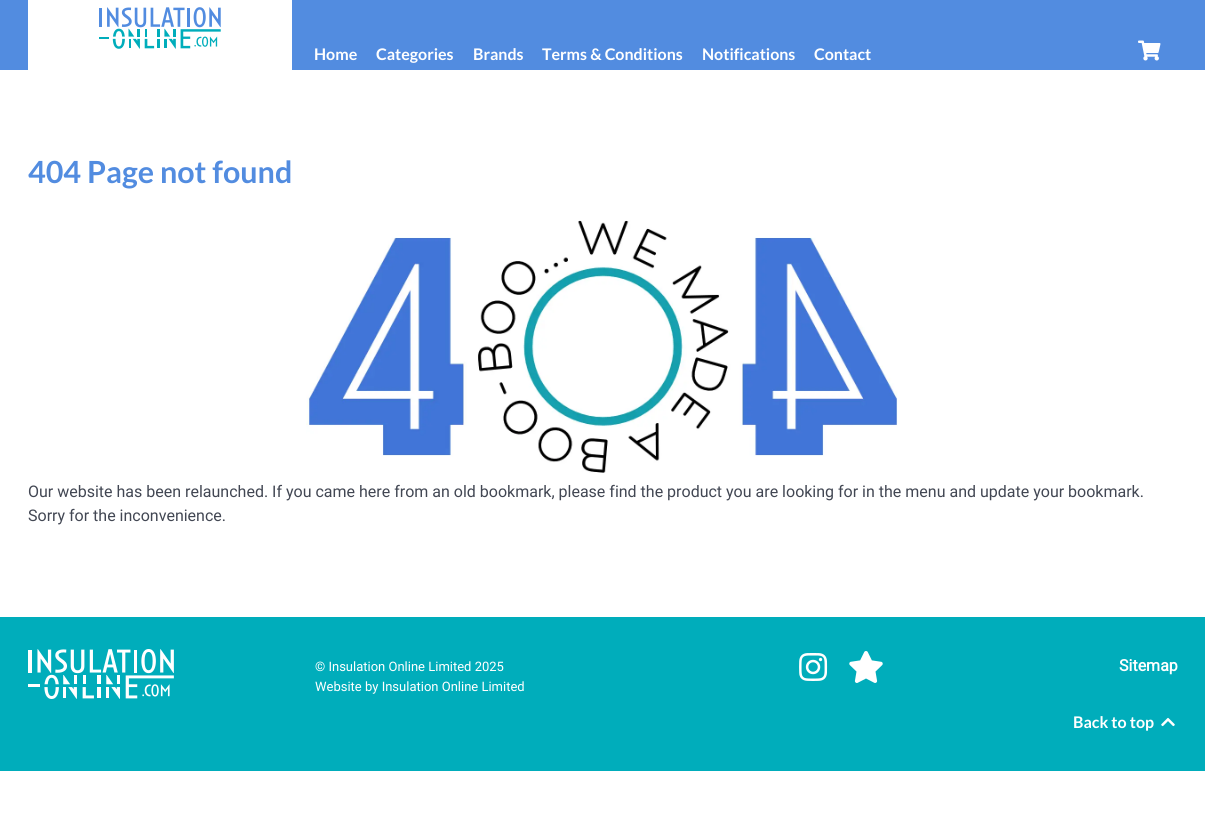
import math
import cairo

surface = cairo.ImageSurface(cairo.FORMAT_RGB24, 1205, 816)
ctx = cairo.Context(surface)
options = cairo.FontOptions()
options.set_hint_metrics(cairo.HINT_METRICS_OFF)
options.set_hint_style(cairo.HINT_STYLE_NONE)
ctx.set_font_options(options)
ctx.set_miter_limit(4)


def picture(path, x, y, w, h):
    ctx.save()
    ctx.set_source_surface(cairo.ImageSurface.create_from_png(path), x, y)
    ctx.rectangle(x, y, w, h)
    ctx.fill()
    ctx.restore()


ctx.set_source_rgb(1, 1, 1)
ctx.paint()
ctx.set_source_rgb(0.322, 0.549, 0.878)
ctx.rectangle(0, 0, 1205, 70)
ctx.fill()
ctx.set_source_rgb(1, 1, 1)
ctx.rectangle(28, 0, 264, 70)
ctx.fill()
picture("img1.png", 99, 7, 122, 42)
ctx.select_font_face("Lato", cairo.FONT_SLANT_NORMAL, cairo.FONT_WEIGHT_BOLD)
ctx.set_font_size(16)
ctx.move_to(314, 60)
ctx.show_text("Home")
ctx.move_to(376, 60)
ctx.show_text("Categories")
ctx.move_to(473, 60)
ctx.show_text("Brands")
ctx.move_to(542, 60)
ctx.show_text("Terms & Conditions")
ctx.move_to(702, 60)
ctx.show_text("Notifications")
ctx.move_to(814, 60)
ctx.show_text("Contact")
picture("img2.png", 1138, 40, 23, 21)
ctx.set_font_size(30.5)
ctx.set_source_rgb(0.322, 0.549, 0.878)
ctx.move_to(28, 183)
ctx.show_text("404 Page not found")
picture("img3.png", 306, 220, 592, 253)
ctx.select_font_face("Roboto")
ctx.set_font_size(16)
ctx.set_source_rgb(0.259, 0.278, 0.325)
ctx.move_to(28, 497)
ctx.show_text("Our website has been relaunched. If you came here from an old bookmark, please find the product you are looking for in the menu and update your bookmark.")
ctx.move_to(28, 521)
ctx.show_text("Sorry for the inconvenience.")
ctx.set_source_rgb(0, 0.678, 0.733)
ctx.rectangle(0, 617, 1205, 154)
ctx.fill()
picture("img4.png", 28, 649, 146, 50)
ctx.set_font_size(13)
ctx.set_source_rgb(1, 1, 1)
ctx.move_to(315, 671)
ctx.show_text("© Insulation Online Limited 2025")
ctx.move_to(315, 691)
ctx.show_text("Website by Insulation Online Limited")
picture("img5.png", 799, 653, 29, 28)
picture("img6.png", 849, 651, 34, 32)
ctx.select_font_face("Roboto", cairo.FONT_SLANT_NORMAL, cairo.FONT_WEIGHT_BOLD)
ctx.set_font_size(16)
ctx.move_to(1119, 671)
ctx.show_text("Sitemap")
ctx.select_font_face("Lato", cairo.FONT_SLANT_NORMAL, cairo.FONT_WEIGHT_BOLD)
ctx.move_to(1073, 728)
ctx.show_text("Back to top")
picture("img7.png", 1161, 717, 14, 10)
surface.write_to_png("page.png")
